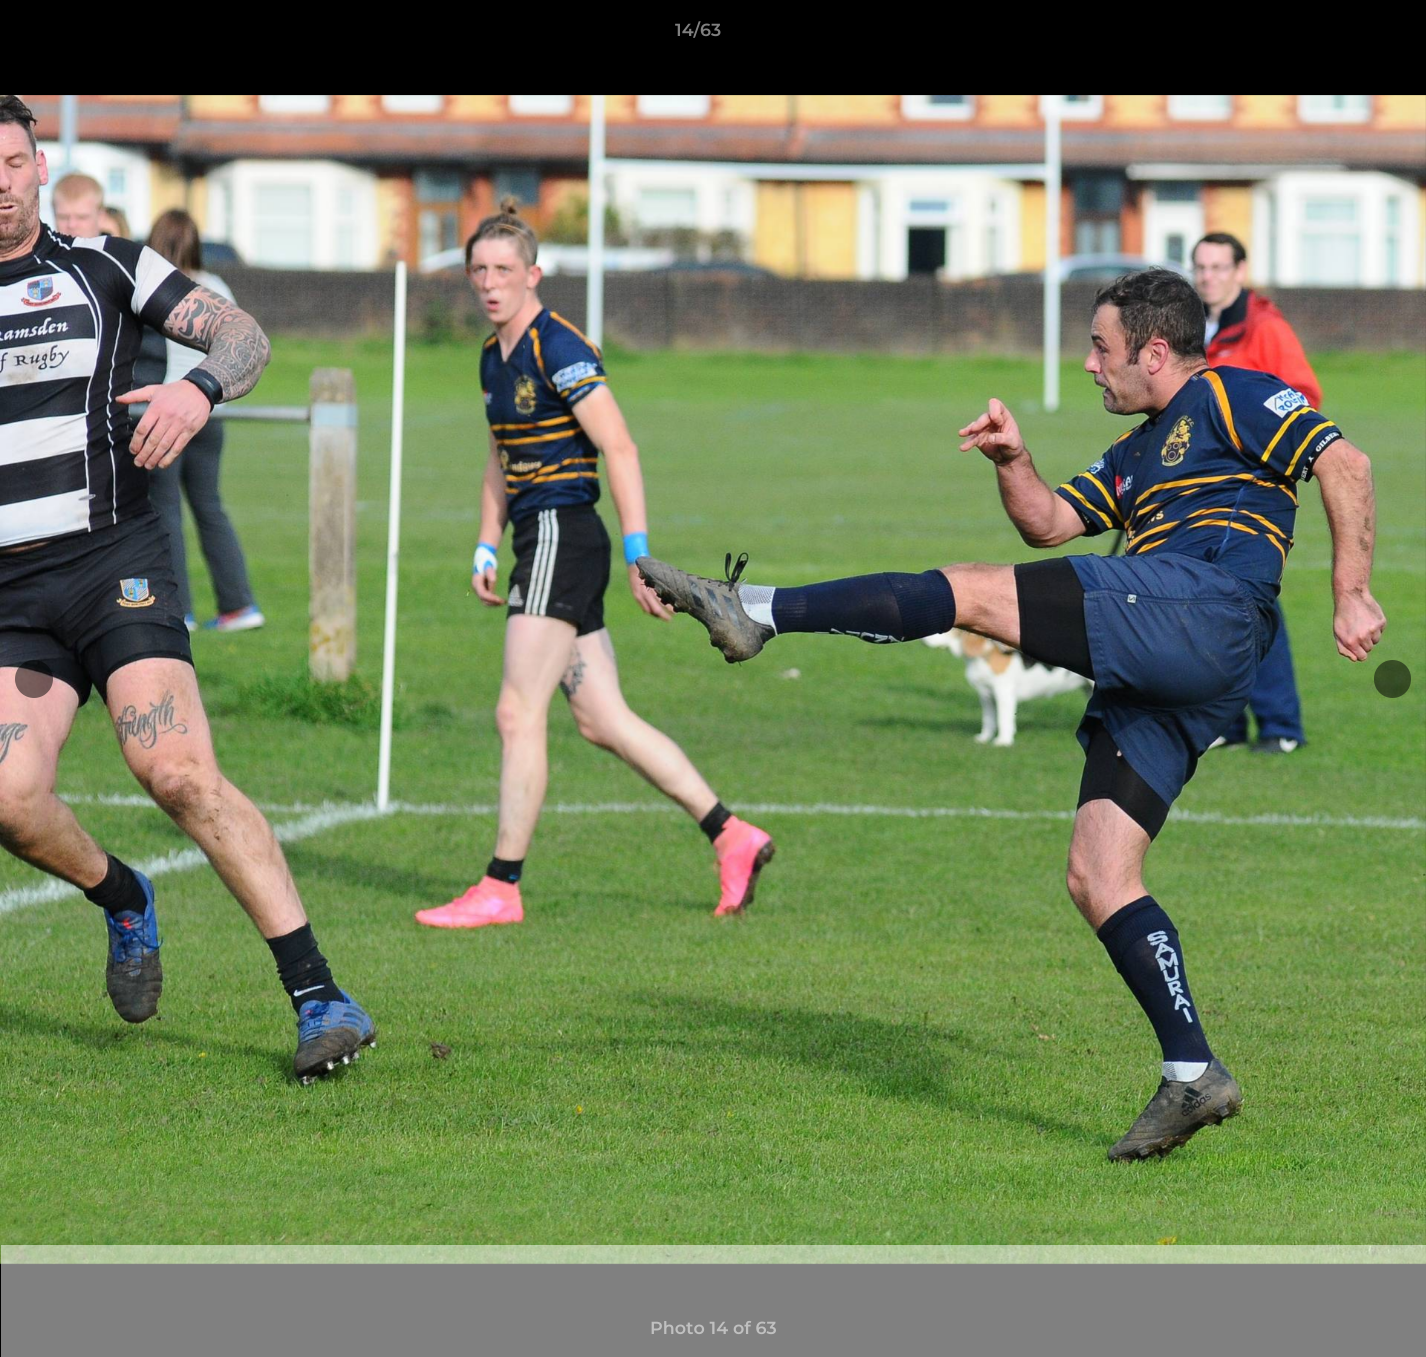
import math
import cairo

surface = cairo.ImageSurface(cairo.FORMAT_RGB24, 1426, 1357)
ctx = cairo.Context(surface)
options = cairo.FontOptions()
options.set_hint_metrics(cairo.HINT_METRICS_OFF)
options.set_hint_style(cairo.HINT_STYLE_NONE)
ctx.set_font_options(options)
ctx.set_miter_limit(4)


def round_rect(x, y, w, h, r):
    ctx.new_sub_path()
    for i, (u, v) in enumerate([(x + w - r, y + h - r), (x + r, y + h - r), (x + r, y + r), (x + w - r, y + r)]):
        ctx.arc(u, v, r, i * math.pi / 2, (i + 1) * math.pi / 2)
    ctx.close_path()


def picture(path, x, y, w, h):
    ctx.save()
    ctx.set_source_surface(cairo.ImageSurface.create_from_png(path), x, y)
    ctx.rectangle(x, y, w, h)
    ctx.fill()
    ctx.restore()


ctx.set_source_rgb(0, 0, 0)
ctx.paint()
ctx.select_font_face("Montserrat SemiBold")
ctx.set_font_size(17.5)
ctx.set_source_rgb(0.502, 0.502, 0.502)
ctx.move_to(675, 36)
ctx.show_text("14/63")
picture("img1.png", 0, 95, 1426, 1170)
ctx.set_source_rgba(0, 0, 0, 0.5)
ctx.arc(34, 679, 19, 0, 2 * math.pi)
ctx.fill()
round_rect(1374, 660, 37, 38, 18.5)
ctx.fill()
ctx.set_source_rgb(0.502, 0.502, 0.502)
ctx.move_to(650, 1334)
ctx.show_text("Photo 14 of 63")
ctx.set_source_rgba(1, 1, 1, 0.5)
ctx.rectangle(1, 1245, 1425, 112)
ctx.fill()
surface.write_to_png("page.png")
